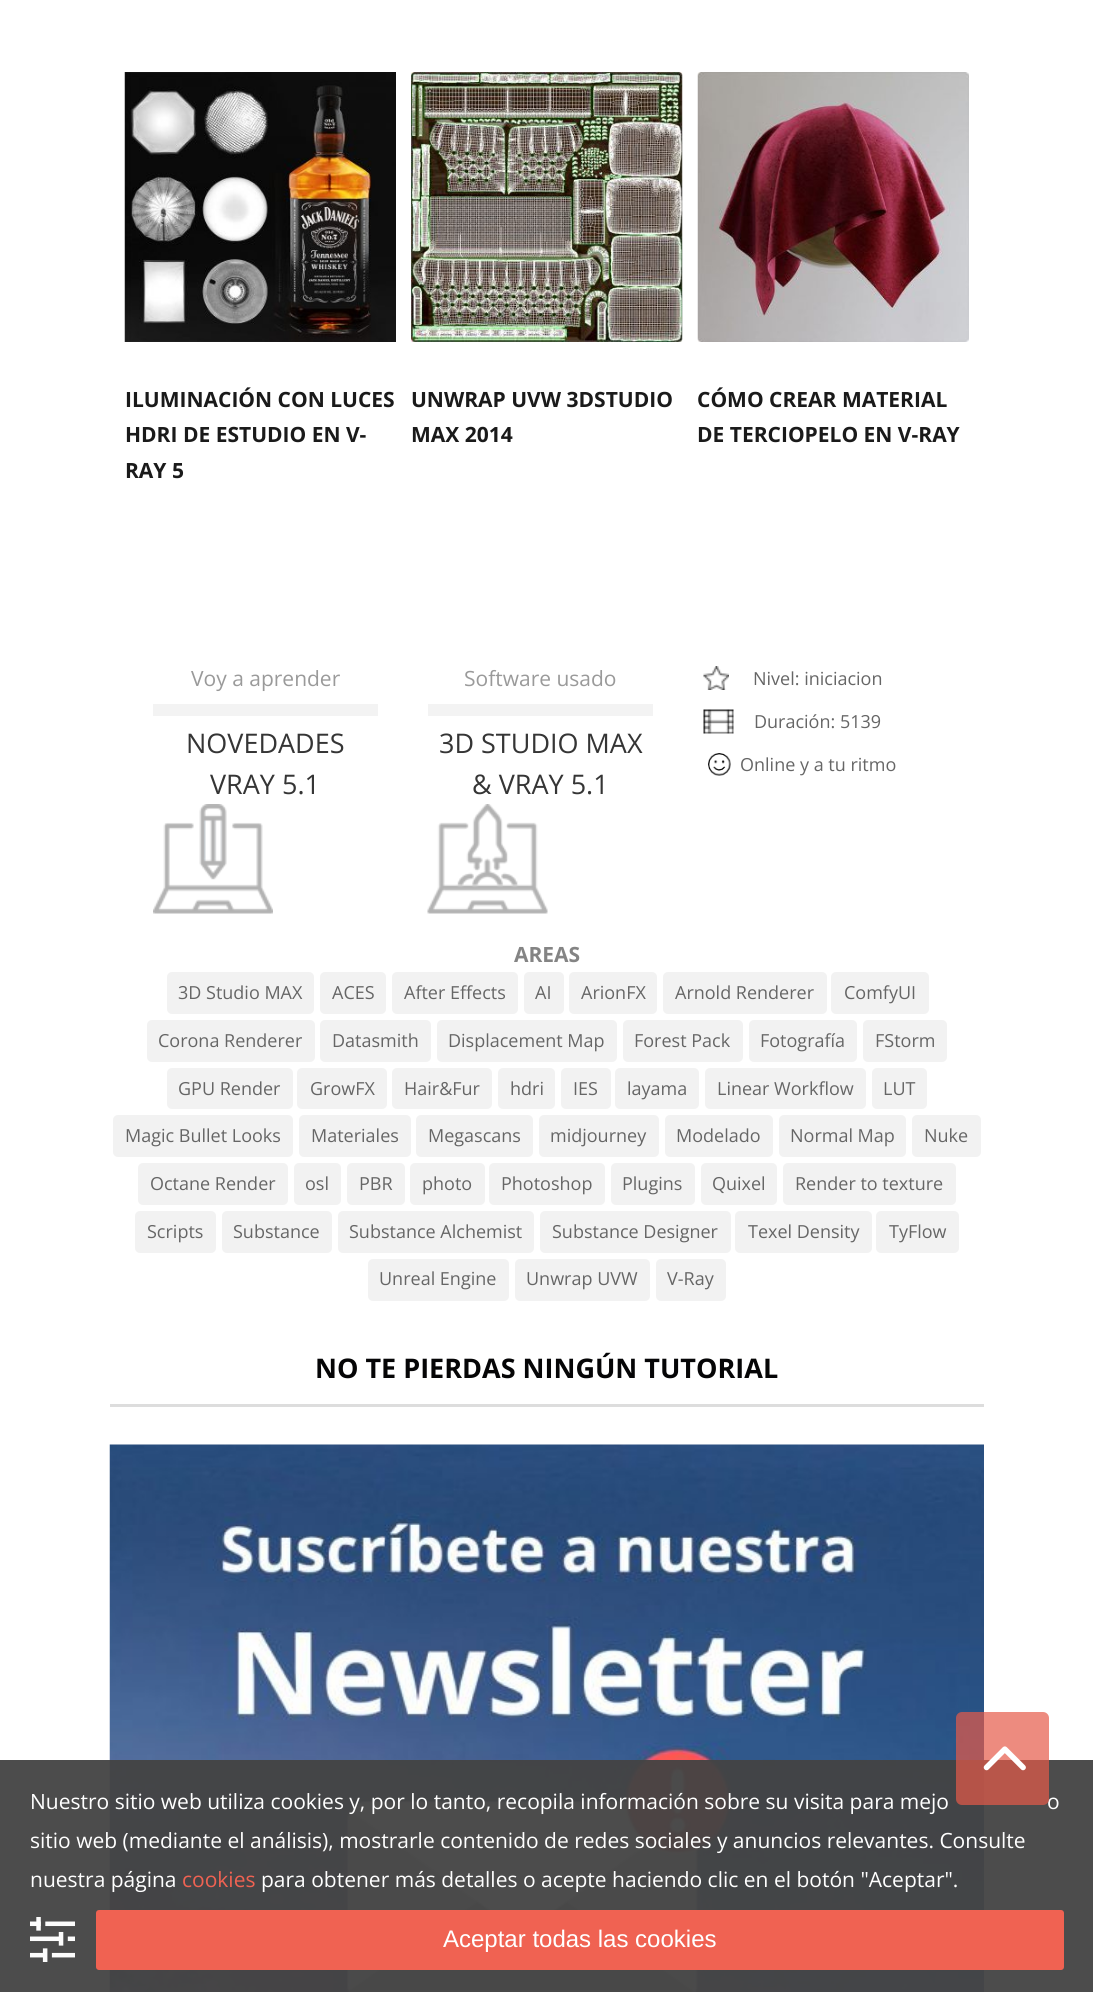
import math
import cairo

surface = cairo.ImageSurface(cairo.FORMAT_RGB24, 1093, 1992)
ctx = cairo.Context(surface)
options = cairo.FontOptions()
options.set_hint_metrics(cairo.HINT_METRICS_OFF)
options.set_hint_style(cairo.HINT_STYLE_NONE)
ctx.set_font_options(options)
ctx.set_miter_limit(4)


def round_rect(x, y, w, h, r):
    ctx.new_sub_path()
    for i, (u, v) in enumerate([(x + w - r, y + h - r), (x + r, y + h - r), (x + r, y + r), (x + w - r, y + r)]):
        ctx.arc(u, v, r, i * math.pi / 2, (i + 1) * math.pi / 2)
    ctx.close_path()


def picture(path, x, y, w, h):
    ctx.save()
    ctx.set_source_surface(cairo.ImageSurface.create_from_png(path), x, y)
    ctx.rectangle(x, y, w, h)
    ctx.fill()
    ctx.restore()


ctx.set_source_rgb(1, 1, 1)
ctx.paint()
picture("img1.png", 124, 72, 272, 270)
ctx.select_font_face("Open Sans", cairo.FONT_SLANT_NORMAL, cairo.FONT_WEIGHT_BOLD)
ctx.set_font_size(21)
ctx.set_source_rgb(0.102, 0.102, 0.102)
ctx.move_to(125, 407)
ctx.show_text("ILUMINACIÓN CON LUCES")
ctx.move_to(125, 442)
ctx.show_text("HDRI DE ESTUDIO EN V-")
ctx.move_to(125, 478)
ctx.show_text("RAY 5")
picture("img2.png", 411, 72, 272, 270)
ctx.move_to(411, 407)
ctx.show_text("UNWRAP UVW 3DSTUDIO")
ctx.move_to(411, 442)
ctx.show_text("MAX 2014")
picture("img3.png", 697, 72, 272, 270)
ctx.move_to(697, 407)
ctx.show_text("CÓMO CREAR MATERIAL")
ctx.move_to(697, 442)
ctx.show_text("DE TERCIOPELO EN V-RAY")
ctx.set_source_rgb(0.953, 0.953, 0.953)
ctx.rectangle(153, 704, 225, 12)
ctx.fill()
ctx.select_font_face("Open Sans")
ctx.set_source_rgb(0.604, 0.604, 0.604)
ctx.move_to(191, 686)
ctx.show_text("Voy a aprender")
ctx.set_font_size(27)
ctx.set_source_rgb(0.208, 0.208, 0.208)
ctx.move_to(186, 753)
ctx.show_text("NOVEDADES")
ctx.move_to(210, 794)
ctx.show_text("VRAY 5.1")
picture("img4.png", 153, 804, 120, 110)
ctx.set_source_rgb(0.953, 0.953, 0.953)
ctx.rectangle(428, 704, 225, 12)
ctx.fill()
ctx.set_font_size(21)
ctx.set_source_rgb(0.604, 0.604, 0.604)
ctx.move_to(464, 686)
ctx.show_text("Software usado")
ctx.set_font_size(27)
ctx.set_source_rgb(0.208, 0.208, 0.208)
ctx.move_to(439, 753)
ctx.show_text("3D STUDIO MAX")
ctx.move_to(472, 794)
ctx.show_text("& VRAY 5.1")
picture("img5.png", 427, 804, 121, 110)
picture("img6.png", 703, 666, 26, 24)
ctx.set_font_size(18)
ctx.set_source_rgb(0.4, 0.4, 0.4)
ctx.move_to(753, 685)
ctx.show_text("Nivel: iniciacion")
picture("img7.png", 703, 709, 31, 25)
ctx.move_to(754, 728)
ctx.show_text("Duración: 5139")
picture("img8.png", 708, 753, 23, 23)
ctx.move_to(740, 771)
ctx.show_text("Online y a tu ritmo")
ctx.select_font_face("Open Sans", cairo.FONT_SLANT_NORMAL, cairo.FONT_WEIGHT_BOLD)
ctx.set_font_size(21)
ctx.set_source_rgb(0.518, 0.518, 0.518)
ctx.move_to(514, 962)
ctx.show_text("AREAS")
ctx.set_source_rgb(0.949, 0.949, 0.949)
round_rect(167, 972, 147, 42, 5)
ctx.fill()
ctx.select_font_face("Open Sans")
ctx.set_font_size(18)
ctx.set_source_rgb(0.4, 0.4, 0.4)
ctx.move_to(178, 999)
ctx.show_text("3D Studio MAX")
ctx.set_source_rgb(0.949, 0.949, 0.949)
round_rect(320, 972, 66, 42, 5)
ctx.fill()
ctx.set_source_rgb(0.4, 0.4, 0.4)
ctx.move_to(332, 999)
ctx.show_text("ACES")
ctx.set_source_rgb(0.949, 0.949, 0.949)
round_rect(392, 972, 126, 42, 5)
ctx.fill()
ctx.set_source_rgb(0.4, 0.4, 0.4)
ctx.move_to(404, 999)
ctx.show_text("After Effects")
ctx.set_source_rgb(0.949, 0.949, 0.949)
round_rect(524, 972, 40, 42, 5)
ctx.fill()
ctx.set_source_rgb(0.4, 0.4, 0.4)
ctx.move_to(535, 999)
ctx.show_text("AI")
ctx.set_source_rgb(0.949, 0.949, 0.949)
round_rect(569, 972, 88, 42, 5)
ctx.fill()
ctx.set_source_rgb(0.4, 0.4, 0.4)
ctx.move_to(581, 999)
ctx.show_text("ArionFX")
ctx.set_source_rgb(0.949, 0.949, 0.949)
round_rect(663, 972, 164, 42, 5)
ctx.fill()
ctx.set_source_rgb(0.4, 0.4, 0.4)
ctx.move_to(675, 999)
ctx.show_text("Arnold Renderer")
ctx.set_source_rgb(0.949, 0.949, 0.949)
round_rect(831, 972, 98, 42, 5)
ctx.fill()
ctx.set_source_rgb(0.4, 0.4, 0.4)
ctx.move_to(844, 999)
ctx.show_text("ComfyUI")
ctx.set_source_rgb(0.949, 0.949, 0.949)
round_rect(147, 1020, 168, 42, 5)
ctx.fill()
ctx.set_source_rgb(0.4, 0.4, 0.4)
ctx.move_to(158, 1047)
ctx.show_text("Corona Renderer")
ctx.set_source_rgb(0.949, 0.949, 0.949)
round_rect(320, 1020, 111, 42, 5)
ctx.fill()
ctx.set_source_rgb(0.4, 0.4, 0.4)
ctx.move_to(332, 1047)
ctx.show_text("Datasmith")
ctx.set_source_rgb(0.949, 0.949, 0.949)
round_rect(437, 1020, 180, 42, 5)
ctx.fill()
ctx.set_source_rgb(0.4, 0.4, 0.4)
ctx.move_to(448, 1047)
ctx.show_text("Displacement Map")
ctx.set_source_rgb(0.949, 0.949, 0.949)
round_rect(623, 1020, 120, 42, 5)
ctx.fill()
ctx.set_source_rgb(0.4, 0.4, 0.4)
ctx.move_to(634, 1047)
ctx.show_text("Forest Pack")
ctx.set_source_rgb(0.949, 0.949, 0.949)
round_rect(749, 1020, 108, 42, 5)
ctx.fill()
ctx.set_source_rgb(0.4, 0.4, 0.4)
ctx.move_to(760, 1047)
ctx.show_text("Fotografía")
ctx.set_source_rgb(0.949, 0.949, 0.949)
round_rect(863, 1020, 84, 42, 5)
ctx.fill()
ctx.set_source_rgb(0.4, 0.4, 0.4)
ctx.move_to(875, 1047)
ctx.show_text("FStorm")
ctx.set_source_rgb(0.949, 0.949, 0.949)
round_rect(167, 1068, 126, 41, 5)
ctx.fill()
ctx.set_source_rgb(0.4, 0.4, 0.4)
ctx.move_to(178, 1095)
ctx.show_text("GPU Render")
ctx.set_source_rgb(0.949, 0.949, 0.949)
round_rect(297, 1068, 90, 41, 5)
ctx.fill()
ctx.set_source_rgb(0.4, 0.4, 0.4)
ctx.move_to(310, 1095)
ctx.show_text("GrowFX")
ctx.set_source_rgb(0.949, 0.949, 0.949)
round_rect(392, 1068, 100, 41, 5)
ctx.fill()
ctx.set_source_rgb(0.4, 0.4, 0.4)
ctx.move_to(404, 1095)
ctx.show_text("Hair&Fur")
ctx.set_source_rgb(0.949, 0.949, 0.949)
round_rect(498, 1068, 57, 41, 5)
ctx.fill()
ctx.set_source_rgb(0.4, 0.4, 0.4)
ctx.move_to(510, 1095)
ctx.show_text("hdri")
ctx.set_source_rgb(0.949, 0.949, 0.949)
round_rect(561, 1068, 50, 41, 5)
ctx.fill()
ctx.set_source_rgb(0.4, 0.4, 0.4)
ctx.move_to(573, 1095)
ctx.show_text("IES")
ctx.set_source_rgb(0.949, 0.949, 0.949)
round_rect(615, 1068, 84, 41, 5)
ctx.fill()
ctx.set_source_rgb(0.4, 0.4, 0.4)
ctx.move_to(627, 1095)
ctx.show_text("layama")
ctx.set_source_rgb(0.949, 0.949, 0.949)
round_rect(705, 1068, 161, 41, 5)
ctx.fill()
ctx.set_source_rgb(0.4, 0.4, 0.4)
ctx.move_to(717, 1095)
ctx.show_text("Linear Workflow")
ctx.set_source_rgb(0.949, 0.949, 0.949)
round_rect(872, 1068, 55, 41, 5)
ctx.fill()
ctx.set_source_rgb(0.4, 0.4, 0.4)
ctx.move_to(883, 1095)
ctx.show_text("LUT")
ctx.set_source_rgb(0.949, 0.949, 0.949)
round_rect(113, 1115, 180, 42, 5)
ctx.fill()
ctx.set_source_rgb(0.4, 0.4, 0.4)
ctx.move_to(125, 1142)
ctx.show_text("Magic Bullet Looks")
ctx.set_source_rgb(0.949, 0.949, 0.949)
round_rect(299, 1115, 112, 42, 5)
ctx.fill()
ctx.set_source_rgb(0.4, 0.4, 0.4)
ctx.move_to(311, 1142)
ctx.show_text("Materiales")
ctx.set_source_rgb(0.949, 0.949, 0.949)
round_rect(416, 1115, 117, 42, 5)
ctx.fill()
ctx.set_source_rgb(0.4, 0.4, 0.4)
ctx.move_to(428, 1142)
ctx.show_text("Megascans")
ctx.set_source_rgb(0.949, 0.949, 0.949)
round_rect(539, 1115, 120, 42, 5)
ctx.fill()
ctx.set_source_rgb(0.4, 0.4, 0.4)
ctx.move_to(550, 1142)
ctx.show_text("midjourney")
ctx.set_source_rgb(0.949, 0.949, 0.949)
round_rect(665, 1115, 108, 42, 5)
ctx.fill()
ctx.set_source_rgb(0.4, 0.4, 0.4)
ctx.move_to(676, 1142)
ctx.show_text("Modelado")
ctx.set_source_rgb(0.949, 0.949, 0.949)
round_rect(779, 1115, 127, 42, 5)
ctx.fill()
ctx.set_source_rgb(0.4, 0.4, 0.4)
ctx.move_to(790, 1142)
ctx.show_text("Normal Map")
ctx.set_source_rgb(0.949, 0.949, 0.949)
round_rect(912, 1115, 69, 42, 5)
ctx.fill()
ctx.set_source_rgb(0.4, 0.4, 0.4)
ctx.move_to(924, 1142)
ctx.show_text("Nuke")
ctx.set_source_rgb(0.949, 0.949, 0.949)
round_rect(138, 1163, 150, 42, 5)
ctx.fill()
ctx.set_source_rgb(0.4, 0.4, 0.4)
ctx.move_to(150, 1190)
ctx.show_text("Octane Render")
ctx.set_source_rgb(0.949, 0.949, 0.949)
round_rect(294, 1163, 47, 42, 5)
ctx.fill()
ctx.set_source_rgb(0.4, 0.4, 0.4)
ctx.move_to(305, 1190)
ctx.show_text("osl")
ctx.set_source_rgb(0.949, 0.949, 0.949)
round_rect(347, 1163, 58, 42, 5)
ctx.fill()
ctx.set_source_rgb(0.4, 0.4, 0.4)
ctx.move_to(359, 1190)
ctx.show_text("PBR")
ctx.set_source_rgb(0.949, 0.949, 0.949)
round_rect(410, 1163, 75, 42, 5)
ctx.fill()
ctx.set_source_rgb(0.4, 0.4, 0.4)
ctx.move_to(422, 1190)
ctx.show_text("photo")
ctx.set_source_rgb(0.949, 0.949, 0.949)
round_rect(489, 1163, 116, 42, 5)
ctx.fill()
ctx.set_source_rgb(0.4, 0.4, 0.4)
ctx.move_to(501, 1190)
ctx.show_text("Photoshop")
ctx.set_source_rgb(0.949, 0.949, 0.949)
round_rect(611, 1163, 84, 42, 5)
ctx.fill()
ctx.set_source_rgb(0.4, 0.4, 0.4)
ctx.move_to(622, 1190)
ctx.show_text("Plugins")
ctx.set_source_rgb(0.949, 0.949, 0.949)
round_rect(701, 1163, 76, 42, 5)
ctx.fill()
ctx.set_source_rgb(0.4, 0.4, 0.4)
ctx.move_to(712, 1190)
ctx.show_text("Quixel")
ctx.set_source_rgb(0.949, 0.949, 0.949)
round_rect(783, 1163, 173, 42, 5)
ctx.fill()
ctx.set_source_rgb(0.4, 0.4, 0.4)
ctx.move_to(795, 1190)
ctx.show_text("Render to texture")
ctx.set_source_rgb(0.949, 0.949, 0.949)
round_rect(135, 1211, 81, 42, 5)
ctx.fill()
ctx.set_source_rgb(0.4, 0.4, 0.4)
ctx.move_to(147, 1238)
ctx.show_text("Scripts")
ctx.set_source_rgb(0.949, 0.949, 0.949)
round_rect(222, 1211, 110, 42, 5)
ctx.fill()
ctx.set_source_rgb(0.4, 0.4, 0.4)
ctx.move_to(233, 1238)
ctx.show_text("Substance")
ctx.set_source_rgb(0.949, 0.949, 0.949)
round_rect(338, 1211, 196, 42, 5)
ctx.fill()
ctx.set_source_rgb(0.4, 0.4, 0.4)
ctx.move_to(349, 1238)
ctx.show_text("Substance Alchemist")
ctx.set_source_rgb(0.949, 0.949, 0.949)
round_rect(540, 1211, 191, 42, 5)
ctx.fill()
ctx.set_source_rgb(0.4, 0.4, 0.4)
ctx.move_to(552, 1238)
ctx.show_text("Substance Designer")
ctx.set_source_rgb(0.949, 0.949, 0.949)
round_rect(735, 1211, 137, 42, 5)
ctx.fill()
ctx.set_source_rgb(0.4, 0.4, 0.4)
ctx.move_to(748, 1238)
ctx.show_text("Texel Density")
ctx.set_source_rgb(0.949, 0.949, 0.949)
round_rect(876, 1211, 83, 42, 5)
ctx.fill()
ctx.set_source_rgb(0.4, 0.4, 0.4)
ctx.move_to(889, 1238)
ctx.show_text("TyFlow")
ctx.set_source_rgb(0.949, 0.949, 0.949)
round_rect(368, 1259, 141, 42, 5)
ctx.fill()
ctx.set_source_rgb(0.4, 0.4, 0.4)
ctx.move_to(379, 1285)
ctx.show_text("Unreal Engine")
ctx.set_source_rgb(0.949, 0.949, 0.949)
round_rect(515, 1259, 135, 42, 5)
ctx.fill()
ctx.set_source_rgb(0.4, 0.4, 0.4)
ctx.move_to(526, 1285)
ctx.show_text("Unwrap UVW")
ctx.set_source_rgb(0.949, 0.949, 0.949)
round_rect(656, 1259, 70, 42, 5)
ctx.fill()
ctx.set_source_rgb(0.4, 0.4, 0.4)
ctx.move_to(667, 1285)
ctx.show_text("V-Ray")
ctx.set_source_rgb(0.867, 0.867, 0.867)
ctx.rectangle(110, 1404, 874, 3)
ctx.fill()
ctx.select_font_face("Open Sans", cairo.FONT_SLANT_NORMAL, cairo.FONT_WEIGHT_BOLD)
ctx.set_font_size(27)
ctx.set_source_rgb(0.02, 0.02, 0.024)
ctx.move_to(315, 1378)
ctx.show_text("NO TE PIERDAS NINGÚN TUTORIAL")
picture("img9.png", 109, 1444, 875, 548)
ctx.set_source_rgba(0.267, 0.267, 0.267, 0.95)
ctx.rectangle(0, 1760, 1093, 232)
ctx.fill()
ctx.select_font_face("Open Sans")
ctx.set_font_size(21)
ctx.set_source_rgb(1, 1, 1)
ctx.move_to(1047, 1809)
ctx.show_text("o")
ctx.set_source_rgba(0.902, 0.353, 0.286, 0.7)
round_rect(956, 1712, 93, 93, 6)
ctx.fill()
picture("img10.png", 983, 1746, 43, 25)
ctx.set_source_rgb(1, 1, 1)
ctx.move_to(30, 1809)
ctx.show_text("Nuestro sitio web utiliza cookies y, por lo tanto, recopila información sobre su visita para mejo")
ctx.move_to(30, 1848)
ctx.show_text("sitio web (mediante el análisis), mostrarle contenido de redes sociales y anuncios relevantes. Consulte")
ctx.move_to(30, 1887)
ctx.show_text("nuestra página")
ctx.set_source_rgb(0.941, 0.384, 0.322)
ctx.move_to(182, 1887)
ctx.show_text("cookies")
ctx.set_source_rgb(1, 1, 1)
ctx.move_to(261, 1887)
ctx.show_text("para obtener más detalles o acepte haciendo clic en el botón \"Aceptar\".")
picture("img11.png", 30, 1917, 45, 45)
ctx.set_source_rgb(0.941, 0.384, 0.322)
round_rect(96, 1910, 968, 60, 3)
ctx.fill()
ctx.select_font_face("Liberation Sans")
ctx.set_font_size(24)
ctx.set_source_rgb(1, 1, 1)
ctx.move_to(443, 1947)
ctx.show_text("Aceptar todas las cookies")
surface.write_to_png("page.png")
